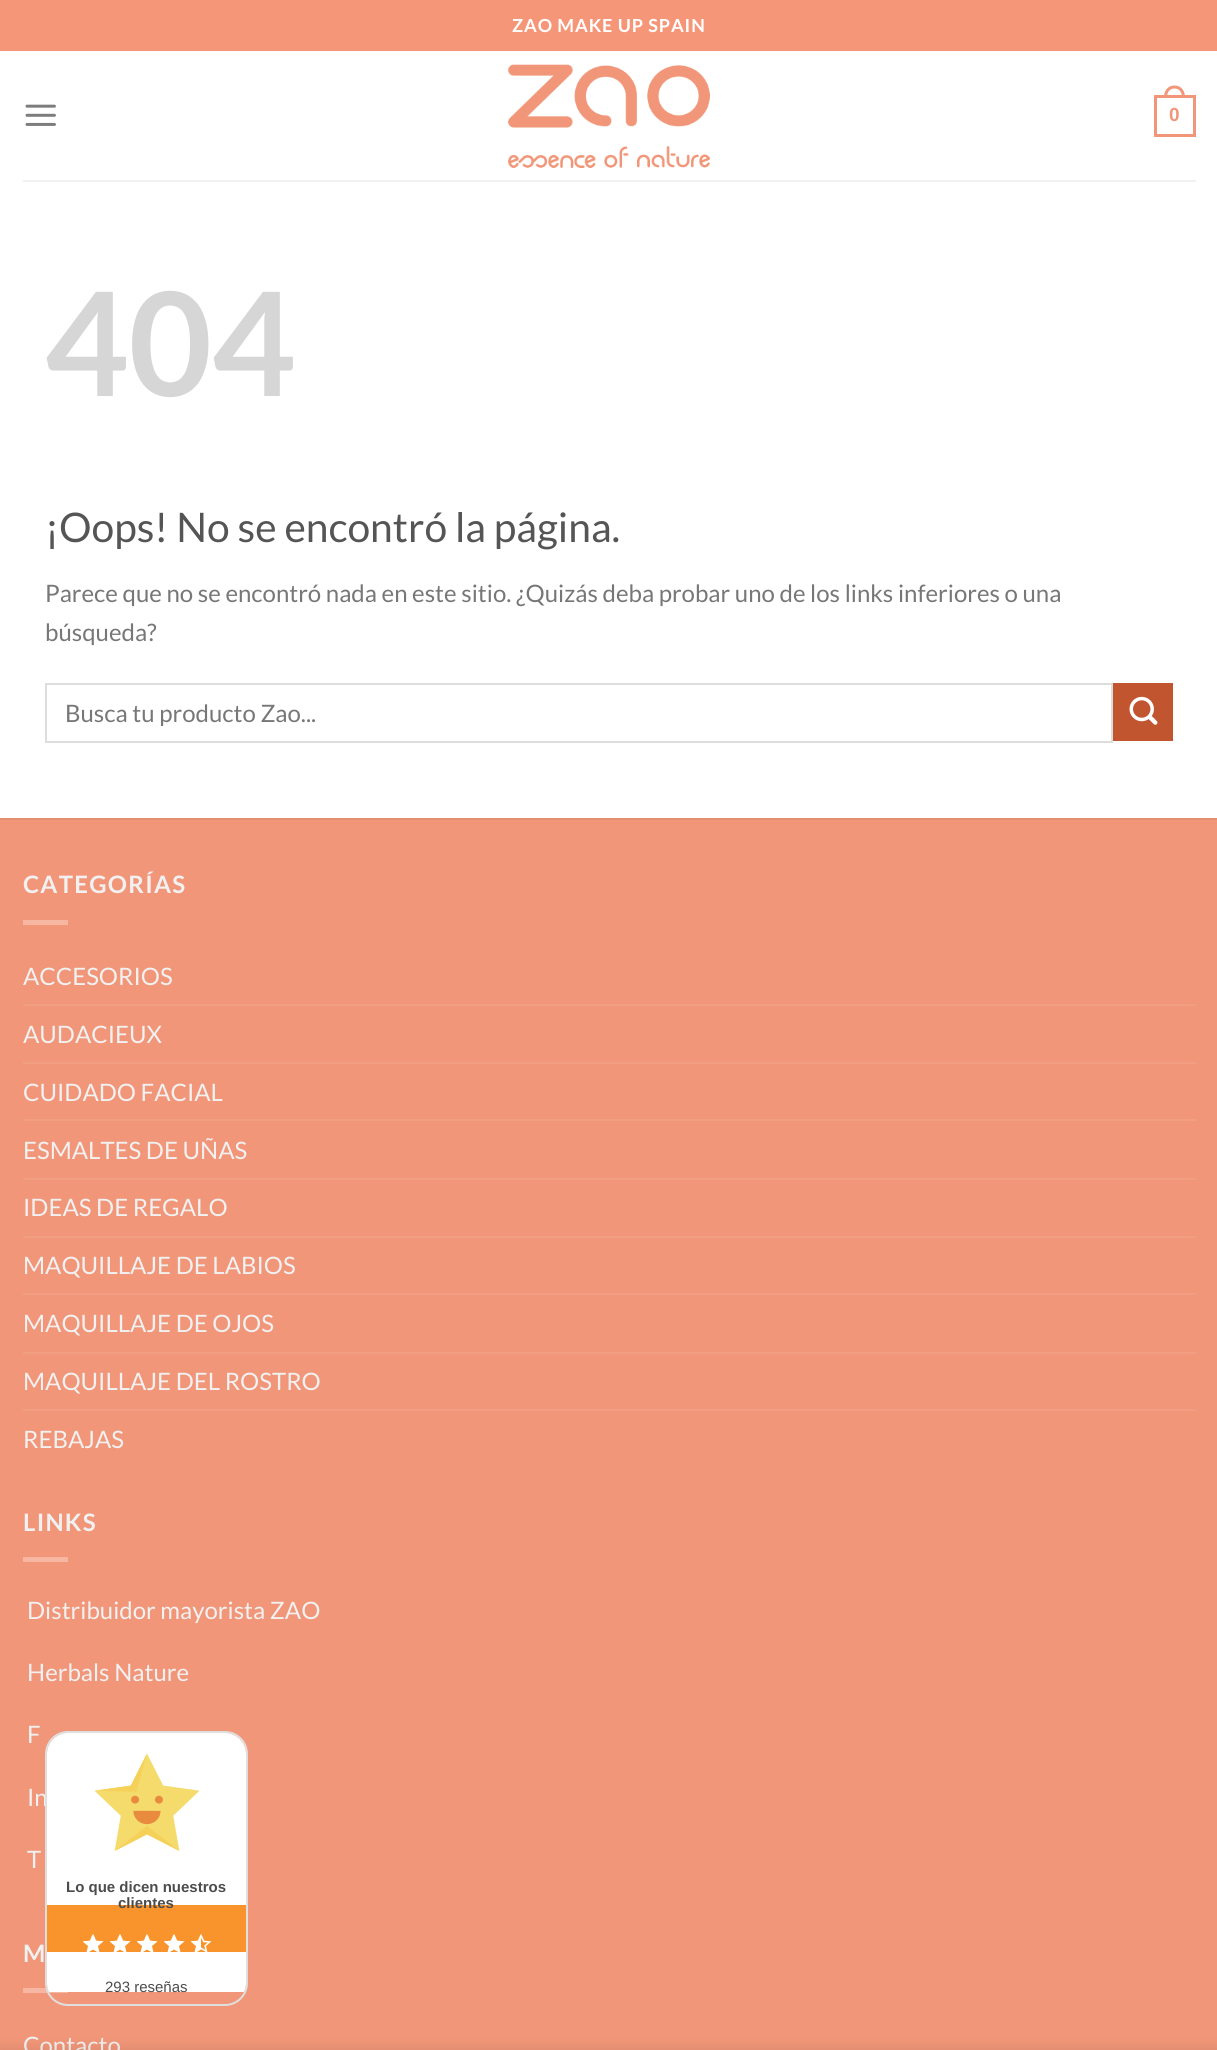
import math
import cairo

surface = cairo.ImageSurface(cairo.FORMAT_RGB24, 1217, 2050)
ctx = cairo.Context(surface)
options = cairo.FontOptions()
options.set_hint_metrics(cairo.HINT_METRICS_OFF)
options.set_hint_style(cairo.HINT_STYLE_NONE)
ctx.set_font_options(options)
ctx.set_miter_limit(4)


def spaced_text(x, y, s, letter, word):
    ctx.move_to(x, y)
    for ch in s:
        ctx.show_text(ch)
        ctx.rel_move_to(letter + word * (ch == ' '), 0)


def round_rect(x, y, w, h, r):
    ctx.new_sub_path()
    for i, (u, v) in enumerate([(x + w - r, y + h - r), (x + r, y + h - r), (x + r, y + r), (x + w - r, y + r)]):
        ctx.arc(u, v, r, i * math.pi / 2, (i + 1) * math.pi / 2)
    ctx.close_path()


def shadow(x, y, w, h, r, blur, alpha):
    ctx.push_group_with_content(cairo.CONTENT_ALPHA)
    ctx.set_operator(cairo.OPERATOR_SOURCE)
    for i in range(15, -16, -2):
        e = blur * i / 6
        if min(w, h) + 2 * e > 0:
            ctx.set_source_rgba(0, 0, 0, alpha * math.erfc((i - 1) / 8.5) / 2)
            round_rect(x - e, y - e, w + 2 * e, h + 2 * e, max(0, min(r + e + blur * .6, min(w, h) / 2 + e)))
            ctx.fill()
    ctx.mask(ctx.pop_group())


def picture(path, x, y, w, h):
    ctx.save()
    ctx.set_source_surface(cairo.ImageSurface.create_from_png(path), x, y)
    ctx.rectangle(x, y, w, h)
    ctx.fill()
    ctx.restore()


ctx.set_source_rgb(1, 1, 1)
ctx.paint()
ctx.set_source_rgb(0.961, 0.588, 0.471)
ctx.rectangle(0, 0, 1217, 51)
ctx.fill()
ctx.select_font_face("Lato", cairo.FONT_SLANT_NORMAL, cairo.FONT_WEIGHT_BOLD)
ctx.set_font_size(18)
ctx.set_source_rgb(1, 1, 1)
spaced_text(512, 32, "ZAO MAKE UP SPAIN", 0.9, 0)
picture("img1.png", 25, 104, 31, 22)
picture("img2.png", 508, 64, 202, 104)
ctx.rectangle(1155.5, 96.5, 39, 39)
ctx.set_source_rgb(0.945, 0.588, 0.471)
ctx.set_line_width(3)
ctx.stroke()
ctx.set_fill_rule(cairo.FILL_RULE_EVEN_ODD)
ctx.new_path()
ctx.move_to(1174.5, 85.5)
ctx.curve_to(1181.5, 85.5, 1185, 91, 1185, 97.5)
ctx.line_to(1164, 97.5)
ctx.curve_to(1164, 91, 1167.5, 85.5, 1174.5, 85.5)
ctx.close_path()
ctx.move_to(1174.5, 88.5)
ctx.curve_to(1180, 88.5, 1182, 93, 1182, 97.5)
ctx.line_to(1167, 97.5)
ctx.curve_to(1167, 93, 1169, 88.5, 1174.5, 88.5)
ctx.close_path()
ctx.fill()
ctx.select_font_face("Liberation Sans", cairo.FONT_SLANT_NORMAL, cairo.FONT_WEIGHT_BOLD)
ctx.set_font_size(19)
ctx.move_to(1169, 121)
ctx.show_text("0")
ctx.set_source_rgb(0.945, 0.945, 0.945)
ctx.rectangle(23, 180, 1173, 2)
ctx.fill()
ctx.select_font_face("Lato", cairo.FONT_SLANT_NORMAL, cairo.FONT_WEIGHT_BOLD)
ctx.set_font_size(144)
ctx.set_source_rgb(0.839, 0.839, 0.839)
ctx.move_to(45, 396)
ctx.show_text("404")
ctx.select_font_face("Lato")
ctx.set_font_size(40.75)
ctx.set_source_rgb(0.333, 0.333, 0.333)
ctx.move_to(45, 542)
ctx.show_text("¡Oops! No se encontró la página.")
ctx.set_font_size(24)
ctx.set_source_rgb(0.467, 0.467, 0.467)
ctx.move_to(45, 602)
ctx.show_text("Parece que no se encontró nada en este sitio. ¿Quizás deba probar uno de los links inferiores o una")
ctx.move_to(45, 641)
ctx.show_text("búsqueda?")
ctx.rectangle(46, 684, 1066, 58)
ctx.set_source_rgb(0.867, 0.867, 0.867)
ctx.set_line_width(2)
ctx.stroke()
ctx.save()
ctx.set_fill_rule(cairo.FILL_RULE_WINDING)
ctx.rectangle(65, 698, 1023, 28)
ctx.clip()
ctx.set_source_rgb(0.467, 0.467, 0.467)
ctx.move_to(65, 722)
ctx.show_text("Busca tu producto Zao...")
ctx.restore()
ctx.set_source_rgb(0.753, 0.333, 0.188)
ctx.rectangle(1113, 683, 60, 58)
ctx.fill()
picture("img3.png", 1129, 696, 29, 29)
ctx.set_source_rgb(0.945, 0.588, 0.471)
ctx.rectangle(0, 820, 1217, 1230)
ctx.fill()
ctx.set_source_rgb(0.898, 0.561, 0.447)
ctx.rectangle(0, 818, 1217, 2)
ctx.fill()
ctx.select_font_face("Lato", cairo.FONT_SLANT_NORMAL, cairo.FONT_WEIGHT_BOLD)
ctx.set_source_rgb(0.945, 0.945, 0.945)
spaced_text(23, 893, "CATEGORÍAS", 1.25, 0)
ctx.set_source_rgb(0.961, 0.714, 0.631)
ctx.rectangle(23, 920, 45, 5)
ctx.fill()
ctx.select_font_face("Lato")
ctx.set_source_rgb(0.945, 0.945, 0.945)
ctx.move_to(23, 985)
ctx.show_text("ACCESORIOS")
ctx.set_source_rgb(0.949, 0.62, 0.514)
ctx.rectangle(23, 1004, 1173, 2)
ctx.fill()
ctx.set_source_rgb(0.945, 0.945, 0.945)
ctx.move_to(23, 1043)
ctx.show_text("AUDACIEUX")
ctx.set_source_rgb(0.949, 0.62, 0.514)
ctx.rectangle(23, 1062, 1173, 2)
ctx.fill()
ctx.set_source_rgb(0.945, 0.945, 0.945)
ctx.move_to(23, 1101)
ctx.show_text("CUIDADO FACIAL")
ctx.set_source_rgb(0.949, 0.62, 0.514)
ctx.rectangle(23, 1119, 1173, 2)
ctx.fill()
ctx.set_source_rgb(0.945, 0.945, 0.945)
ctx.move_to(23, 1159)
ctx.show_text("ESMALTES DE UÑAS")
ctx.set_source_rgb(0.949, 0.62, 0.514)
ctx.rectangle(23, 1178, 1173, 2)
ctx.fill()
ctx.set_source_rgb(0.945, 0.945, 0.945)
ctx.move_to(23, 1216)
ctx.show_text("IDEAS DE REGALO")
ctx.set_source_rgb(0.949, 0.62, 0.514)
ctx.rectangle(23, 1236, 1173, 2)
ctx.fill()
ctx.set_source_rgb(0.945, 0.945, 0.945)
ctx.move_to(23, 1274)
ctx.show_text("MAQUILLAJE DE LABIOS")
ctx.set_source_rgb(0.949, 0.62, 0.514)
ctx.rectangle(23, 1293, 1173, 2)
ctx.fill()
ctx.set_source_rgb(0.945, 0.945, 0.945)
ctx.move_to(23, 1332)
ctx.show_text("MAQUILLAJE DE OJOS")
ctx.set_source_rgb(0.949, 0.62, 0.514)
ctx.rectangle(23, 1352, 1173, 2)
ctx.fill()
ctx.set_source_rgb(0.945, 0.945, 0.945)
ctx.move_to(23, 1390)
ctx.show_text("MAQUILLAJE DEL ROSTRO")
ctx.set_source_rgb(0.949, 0.62, 0.514)
ctx.rectangle(23, 1409, 1173, 2)
ctx.fill()
ctx.set_source_rgb(0.945, 0.945, 0.945)
ctx.move_to(23, 1448)
ctx.show_text("REBAJAS")
ctx.select_font_face("Lato", cairo.FONT_SLANT_NORMAL, cairo.FONT_WEIGHT_BOLD)
spaced_text(23, 1531, "LINKS", 1.25, 0)
ctx.set_source_rgb(0.961, 0.714, 0.631)
ctx.rectangle(23, 1557, 45, 5)
ctx.fill()
ctx.select_font_face("Lato")
ctx.set_source_rgb(0.945, 0.945, 0.945)
ctx.move_to(27, 1619)
ctx.show_text("Distribuidor mayorista ZAO")
ctx.move_to(27, 1681)
ctx.show_text("Herbals Nature")
ctx.move_to(27, 1743)
ctx.show_text("F")
ctx.move_to(27, 1806)
ctx.show_text("In")
ctx.move_to(27, 1868)
ctx.show_text("T")
ctx.select_font_face("Lato", cairo.FONT_SLANT_NORMAL, cairo.FONT_WEIGHT_BOLD)
spaced_text(23, 1962, "M", 1.25, 0)
ctx.set_source_rgb(0.961, 0.714, 0.631)
ctx.rectangle(23, 1988, 45, 5)
ctx.fill()
ctx.select_font_face("Lato")
ctx.set_source_rgb(0.945, 0.945, 0.945)
ctx.move_to(23, 2054)
ctx.show_text("Contacto")
round_rect(46, 1732, 201, 273, 22)
ctx.set_source_rgb(0.875, 0.875, 0.875)
ctx.stroke()
ctx.set_source_rgb(1, 1, 1)
ctx.new_path()
ctx.move_to(68, 1733)
ctx.line_to(225, 1733)
ctx.curve_to(236.5, 1733, 246, 1742.5, 246, 1754)
ctx.line_to(246, 1905)
ctx.line_to(47, 1905)
ctx.line_to(47, 1754)
ctx.curve_to(47, 1742.5, 56.5, 1733, 68, 1733)
ctx.close_path()
ctx.fill()
ctx.set_source_rgb(0.973, 0.58, 0.176)
ctx.rectangle(47, 1905, 199, 47)
ctx.fill()
ctx.save()
ctx.set_fill_rule(cairo.FILL_RULE_WINDING)
round_rect(47, 1733, 199, 271, 21)
ctx.clip()
ctx.set_source_rgb(1, 1, 1)
ctx.rectangle(47, 1952, 199, 40)
ctx.fill()
ctx.restore()
picture("img4.png", 95, 1754, 105, 97)
ctx.select_font_face("Liberation Sans", cairo.FONT_SLANT_NORMAL, cairo.FONT_WEIGHT_BOLD)
ctx.set_font_size(15)
ctx.set_source_rgb(0.298, 0.298, 0.298)
ctx.move_to(66, 1892)
ctx.show_text("Lo que dicen nuestros")
ctx.move_to(118, 1908)
ctx.show_text("clientes")
picture("img5.png", 83, 1934, 21, 18)
picture("img6.png", 83, 1934, 20, 18)
picture("img5.png", 110, 1934, 21, 18)
picture("img6.png", 110, 1934, 20, 18)
picture("img5.png", 137, 1934, 21, 18)
picture("img6.png", 137, 1934, 20, 18)
picture("img5.png", 164, 1934, 21, 18)
picture("img6.png", 164, 1934, 20, 18)
picture("img5.png", 191, 1934, 21, 18)
picture("img7.png", 191, 1934, 10, 18)
ctx.select_font_face("Liberation Sans")
ctx.move_to(105, 1992)
ctx.show_text("293 reseñas")
ctx.set_source_rgb(0, 0, 0)
shadow(0, 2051, 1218, 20, 0, 7, 0.14)
surface.write_to_png("page.png")
